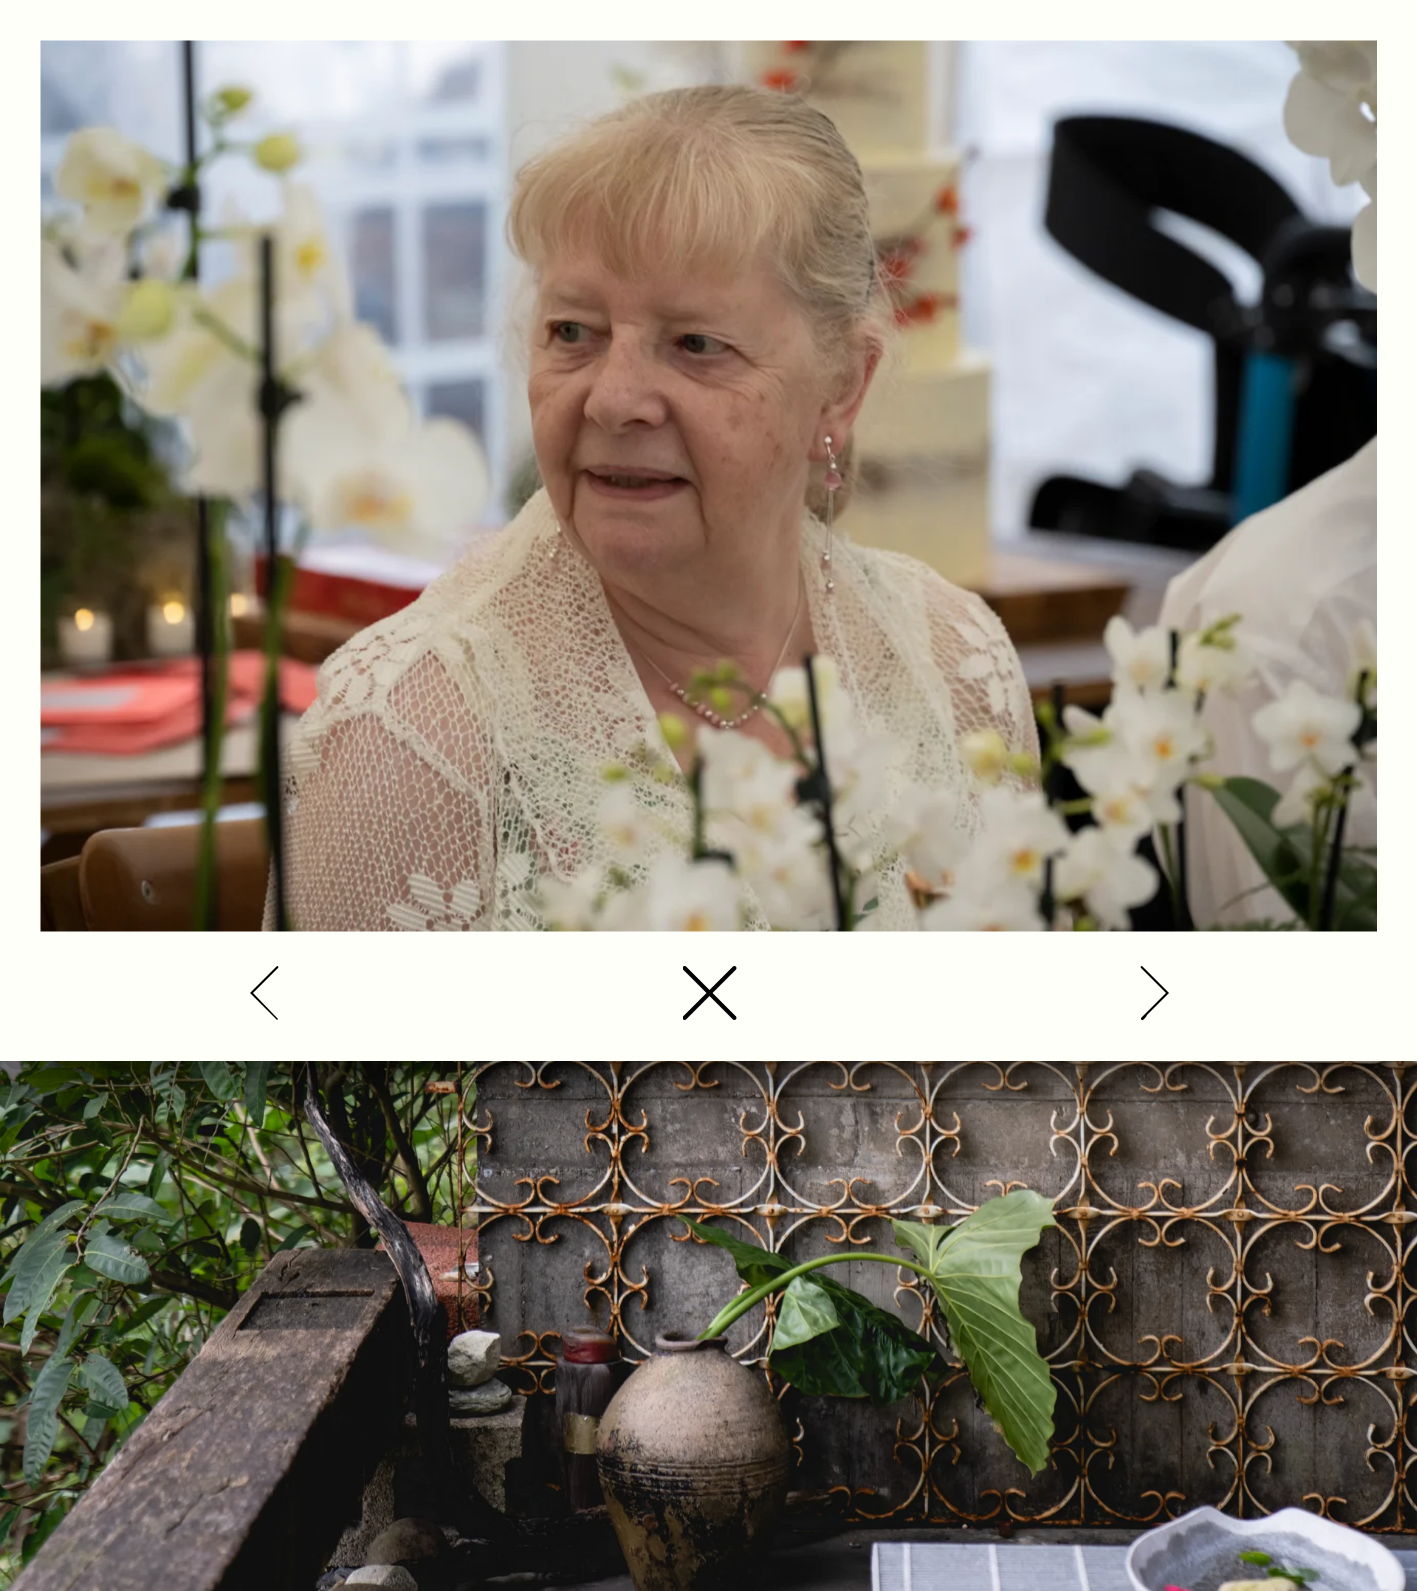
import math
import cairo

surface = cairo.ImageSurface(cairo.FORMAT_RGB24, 1417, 1591)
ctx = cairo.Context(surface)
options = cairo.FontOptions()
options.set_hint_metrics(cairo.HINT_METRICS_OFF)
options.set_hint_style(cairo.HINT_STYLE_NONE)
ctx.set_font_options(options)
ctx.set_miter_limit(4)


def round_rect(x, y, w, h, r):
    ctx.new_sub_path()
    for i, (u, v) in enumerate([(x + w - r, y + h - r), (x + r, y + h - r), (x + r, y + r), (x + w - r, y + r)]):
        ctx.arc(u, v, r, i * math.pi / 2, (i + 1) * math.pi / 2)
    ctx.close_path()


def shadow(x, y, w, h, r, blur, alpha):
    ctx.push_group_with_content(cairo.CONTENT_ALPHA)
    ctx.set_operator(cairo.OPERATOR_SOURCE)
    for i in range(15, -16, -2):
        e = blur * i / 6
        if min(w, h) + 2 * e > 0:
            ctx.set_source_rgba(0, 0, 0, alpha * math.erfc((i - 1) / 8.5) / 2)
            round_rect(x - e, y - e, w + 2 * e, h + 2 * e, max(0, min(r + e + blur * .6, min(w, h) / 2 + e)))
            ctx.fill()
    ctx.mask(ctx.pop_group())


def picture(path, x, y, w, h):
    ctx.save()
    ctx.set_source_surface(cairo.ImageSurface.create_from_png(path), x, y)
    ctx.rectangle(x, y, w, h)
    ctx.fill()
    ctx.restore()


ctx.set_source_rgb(1, 1, 1)
ctx.paint()
picture("img1.png", 0, 1061, 1417, 530)
ctx.set_source_rgb(0, 0, 0)
shadow(0, 14, 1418, 1060, 0, 27, 0.71)
ctx.set_source_rgb(1, 1, 0.98)
ctx.rectangle(0, 0, 1417, 1061)
ctx.fill()
picture("img2.png", 40, 40, 1337, 892)
ctx.set_source_rgb(0, 0, 0)
ctx.new_path()
ctx.move_to(278, 968)
ctx.curve_to(279, 967, 278, 966, 277, 966)
ctx.line_to(250, 993)
ctx.line_to(277, 1020)
ctx.curve_to(277, 1020, 278, 1019, 278, 1019)
ctx.line_to(253, 993)
ctx.close_path()
ctx.fill()
picture("img3.png", 683, 966, 54, 54)
ctx.new_path()
ctx.move_to(1141, 968)
ctx.curve_to(1140, 967, 1141, 966, 1142, 966)
ctx.line_to(1169, 993)
ctx.line_to(1147, 1015)
ctx.curve_to(1147, 1016, 1143, 1021, 1142, 1020)
ctx.curve_to(1141, 1020, 1141, 1019, 1141, 1018)
ctx.line_to(1166, 993)
ctx.close_path()
ctx.fill()
surface.write_to_png("page.png")
